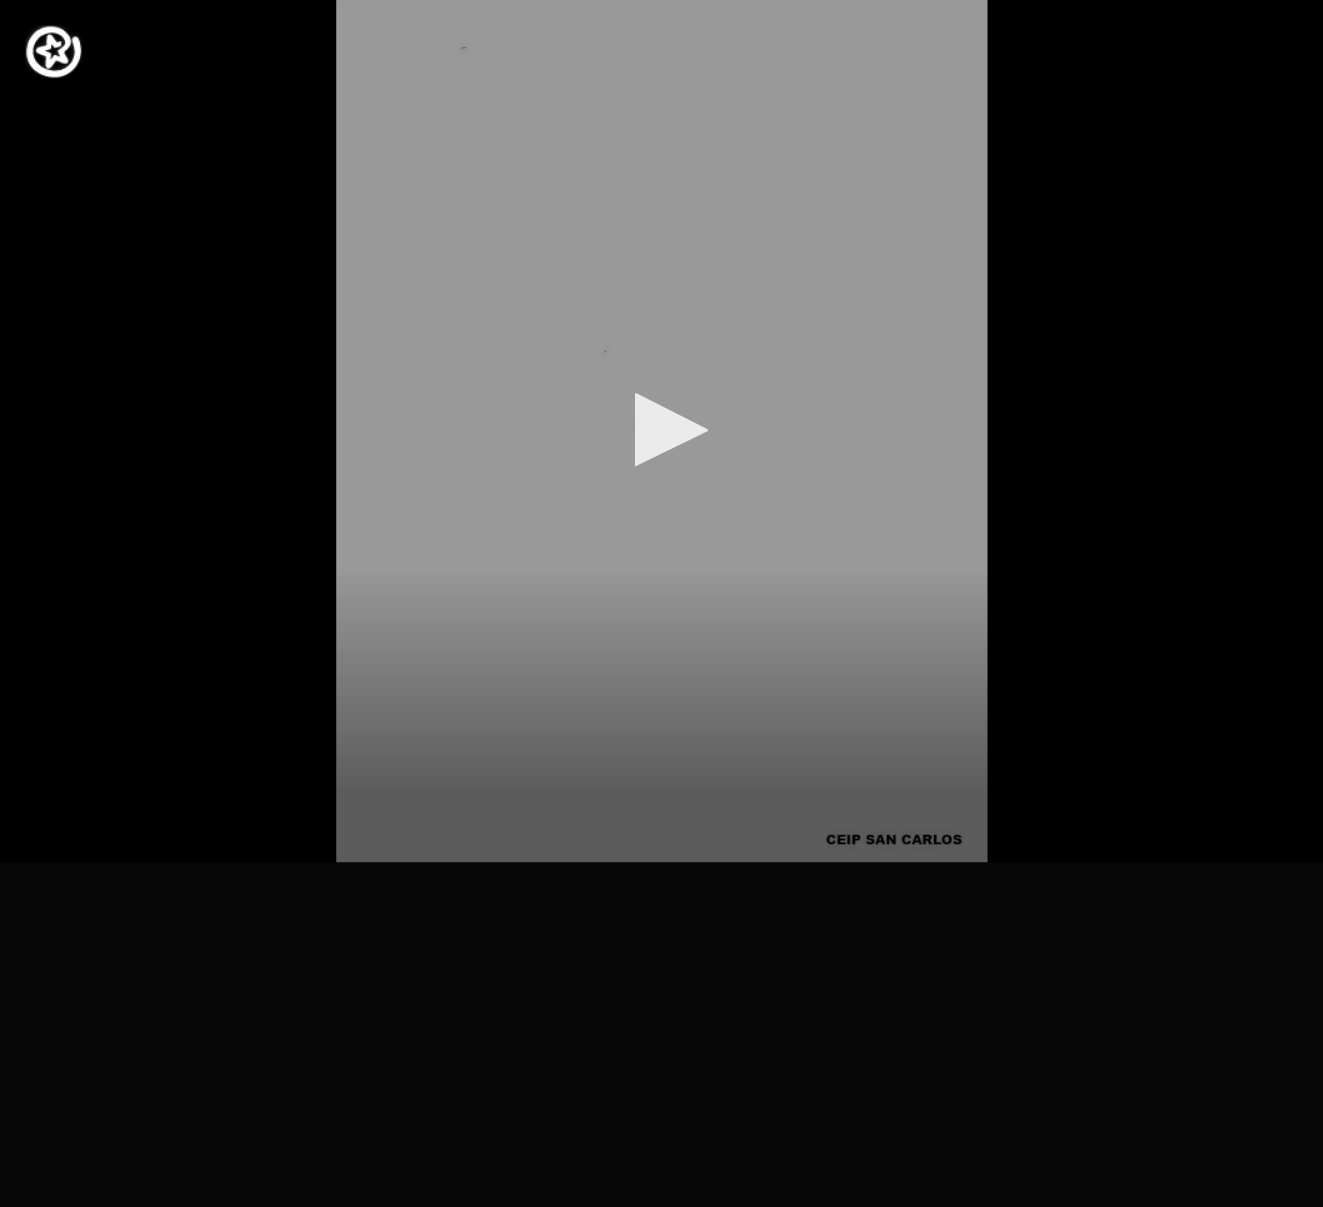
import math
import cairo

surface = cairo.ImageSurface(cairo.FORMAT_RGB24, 1323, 1207)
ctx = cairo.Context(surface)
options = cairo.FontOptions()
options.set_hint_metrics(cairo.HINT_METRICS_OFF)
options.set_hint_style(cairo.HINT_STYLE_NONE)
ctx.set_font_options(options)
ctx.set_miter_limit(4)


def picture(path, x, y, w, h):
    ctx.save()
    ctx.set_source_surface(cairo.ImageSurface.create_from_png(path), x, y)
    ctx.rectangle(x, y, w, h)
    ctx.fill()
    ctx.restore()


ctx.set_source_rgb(0.031, 0.031, 0.031)
ctx.paint()
ctx.set_source_rgb(0, 0, 0)
ctx.rectangle(0, 0, 1323, 863)
ctx.fill()
picture("img1.png", 25, 25, 58, 54)
picture("img2.png", 336, 0, 652, 863)
ctx.set_source_rgba(1, 1, 1, 0.8)
ctx.new_path()
ctx.move_to(636, 466)
ctx.curve_to(636, 467, 635, 467, 635, 466)
ctx.line_to(635, 394)
ctx.line_to(636, 393)
ctx.line_to(707, 429)
ctx.curve_to(708, 429, 708, 430, 708, 431)
ctx.close_path()
ctx.fill()
gradient = cairo.LinearGradient(662, 562, 662, 863)
gradient.add_color_stop_rgba(0, 0, 0, 0, 0)
gradient.add_color_stop_rgba(0.77, 0, 0, 0, 0.4)
gradient.add_color_stop_rgba(1, 0, 0, 0, 0.4)
ctx.set_source(gradient)
ctx.rectangle(336, 575, 652, 288)
ctx.fill()
surface.write_to_png("page.png")
